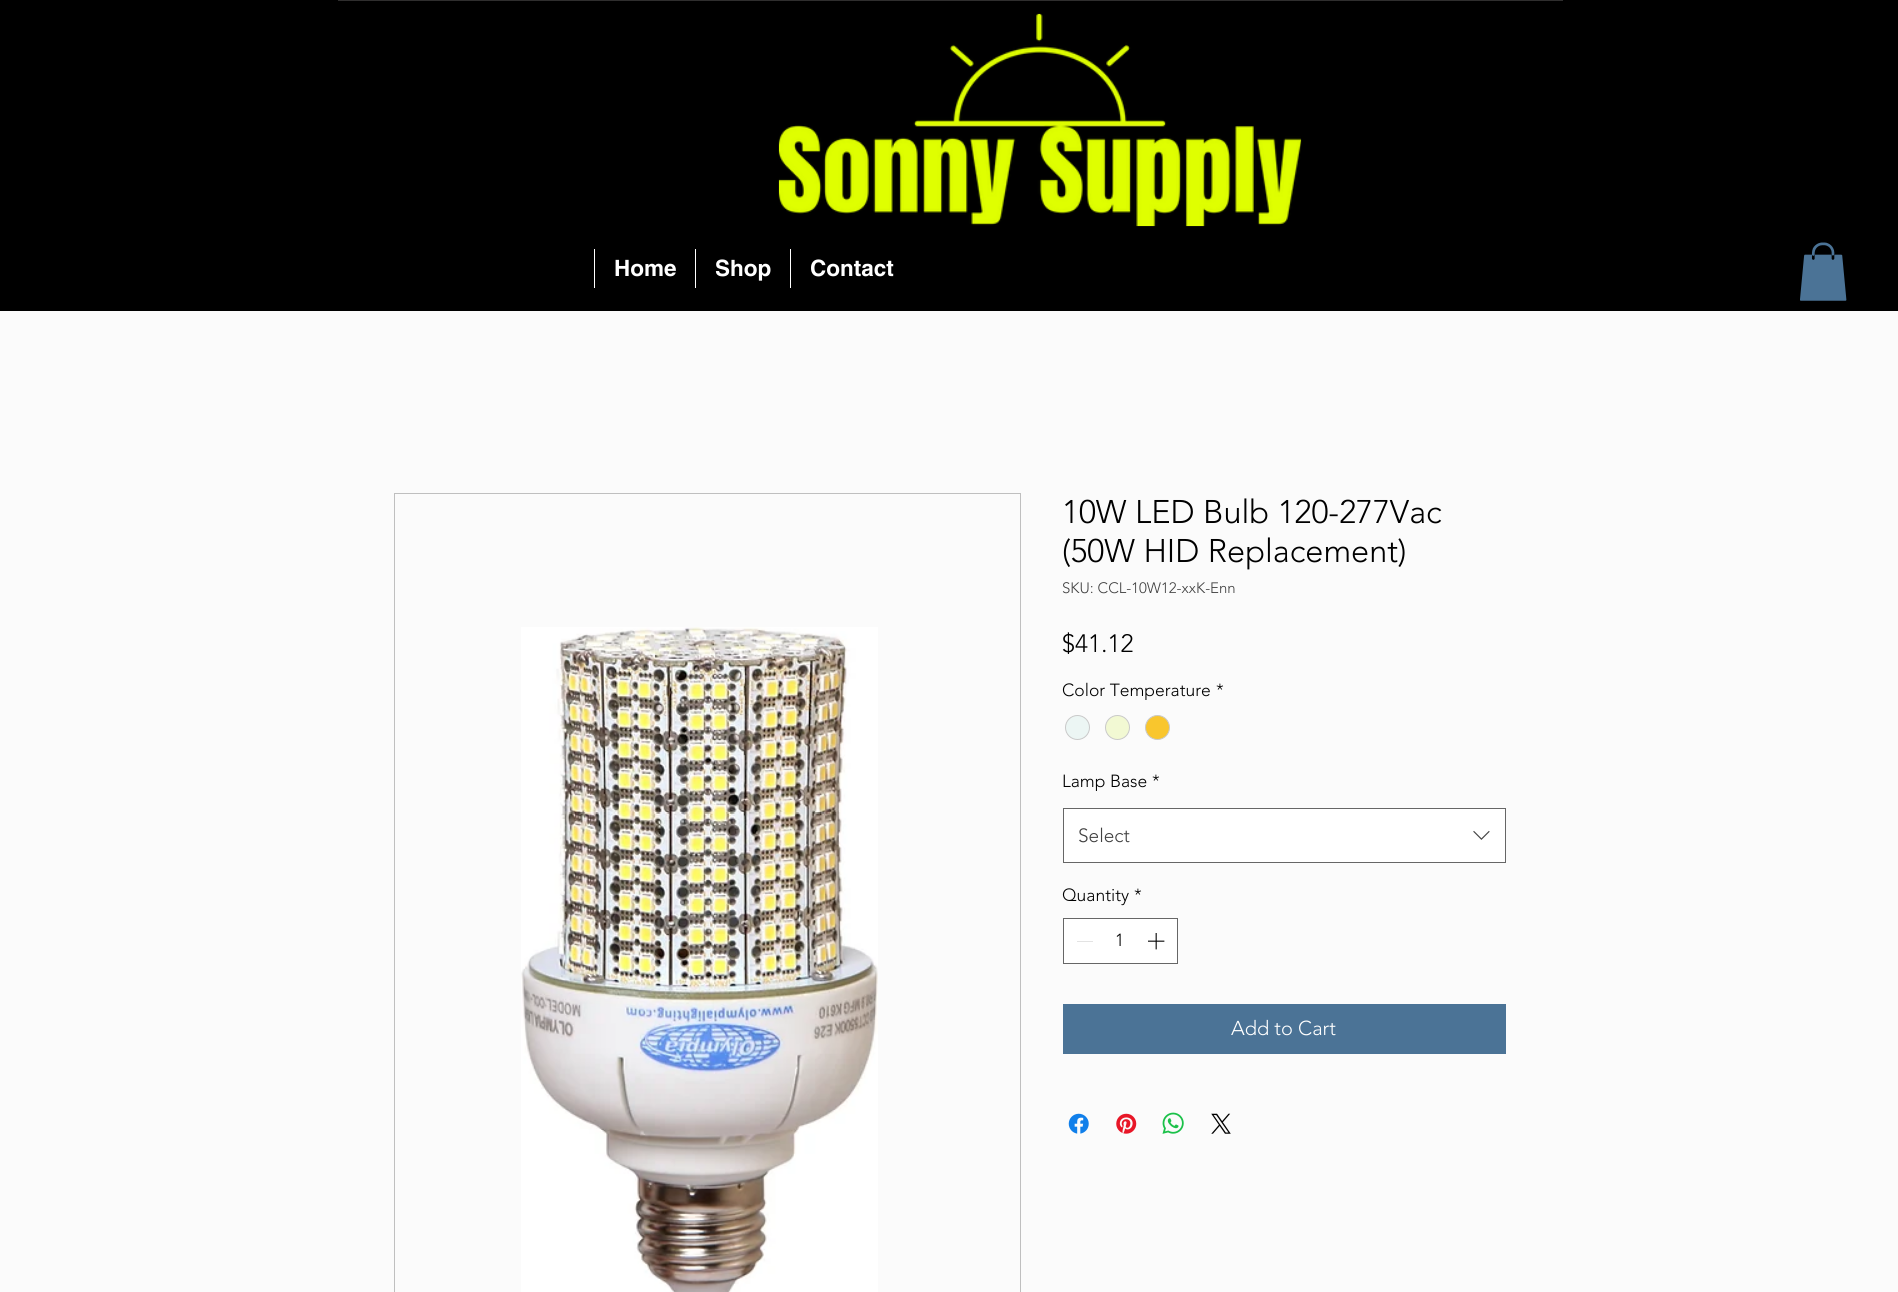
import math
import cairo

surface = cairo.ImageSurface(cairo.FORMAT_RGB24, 1898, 1292)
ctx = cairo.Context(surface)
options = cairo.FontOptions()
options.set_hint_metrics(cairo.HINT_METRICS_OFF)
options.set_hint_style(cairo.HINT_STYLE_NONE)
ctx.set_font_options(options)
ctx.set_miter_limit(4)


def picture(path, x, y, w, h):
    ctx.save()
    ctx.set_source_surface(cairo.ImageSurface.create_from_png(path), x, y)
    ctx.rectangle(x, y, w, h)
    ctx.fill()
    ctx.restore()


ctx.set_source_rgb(0.984, 0.984, 0.984)
ctx.paint()
ctx.set_source_rgb(0, 0, 0)
ctx.rectangle(0, 0, 1898, 311)
ctx.fill()
ctx.set_source_rgb(0.184, 0.18, 0.18)
ctx.rectangle(338, 0, 1225, 1)
ctx.fill()
picture("img1.png", 778, 13, 524, 214)
ctx.set_source_rgb(1, 1, 1)
ctx.rectangle(594, 249, 1, 39)
ctx.fill()
ctx.select_font_face("helvetica", cairo.FONT_SLANT_NORMAL, cairo.FONT_WEIGHT_BOLD)
ctx.set_font_size(22.5)
ctx.move_to(614, 276)
ctx.show_text("Home")
ctx.rectangle(695, 249, 1, 39)
ctx.fill()
ctx.move_to(715, 276)
ctx.show_text("Shop")
ctx.rectangle(790, 249, 1, 39)
ctx.fill()
ctx.move_to(810, 276)
ctx.show_text("Contact")
picture("img2.png", 1800, 242, 47, 59)
ctx.rectangle(394.5, 493.5, 626, 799)
ctx.set_source_rgb(0.749, 0.749, 0.749)
ctx.set_line_width(1)
ctx.stroke()
picture("img3.png", 521, 627, 357, 665)
ctx.select_font_face("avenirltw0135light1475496 Light")
ctx.set_font_size(32.5)
ctx.set_source_rgb(0, 0, 0)
ctx.move_to(1062, 523)
ctx.show_text("10W LED Bulb 120-277Vac")
ctx.move_to(1062, 562)
ctx.show_text("(50W HID Replacement)")
ctx.set_font_size(15)
ctx.set_source_rgb(0.251, 0.251, 0.251)
ctx.move_to(1062, 593)
ctx.show_text("SKU: CCL-10W12-xxK-Enn")
ctx.set_font_size(25)
ctx.set_source_rgb(0, 0, 0)
ctx.move_to(1062, 652)
ctx.show_text("$41.12")
ctx.set_font_size(17.5)
ctx.move_to(1062, 696)
ctx.show_text("Color Temperature")
ctx.move_to(1216, 696)
ctx.show_text("*")
ctx.set_source_rgb(0.925, 0.961, 0.957)
ctx.new_path()
ctx.arc(1077.5, 727.5, 12, 0, 2 * math.pi)
ctx.fill_preserve()
ctx.set_source_rgb(0.788, 0.788, 0.788)
ctx.stroke()
ctx.set_source_rgb(0.949, 0.976, 0.827)
ctx.arc(1117.5, 727.5, 12, 0, 2 * math.pi)
ctx.fill_preserve()
ctx.set_source_rgb(0.788, 0.788, 0.788)
ctx.stroke()
ctx.set_source_rgb(0.976, 0.776, 0.176)
ctx.arc(1157.5, 727.5, 12, 0, 2 * math.pi)
ctx.fill_preserve()
ctx.set_source_rgb(0.788, 0.788, 0.788)
ctx.stroke()
ctx.set_source_rgb(0, 0, 0)
ctx.move_to(1062, 787)
ctx.show_text("Lamp Base")
ctx.move_to(1152, 787)
ctx.show_text("*")
ctx.set_source_rgb(1, 1, 1)
ctx.rectangle(1063.5, 808.5, 442, 54)
ctx.fill_preserve()
ctx.set_source_rgb(0.4, 0.4, 0.4)
ctx.stroke()
ctx.set_font_size(19)
ctx.set_source_rgb(0.251, 0.251, 0.251)
ctx.move_to(1078, 842)
ctx.show_text("Select")
picture("img4.png", 1473, 830, 17, 10)
ctx.set_font_size(17.5)
ctx.set_source_rgb(0, 0, 0)
ctx.move_to(1062, 901)
ctx.show_text("Quantity")
ctx.move_to(1134, 901)
ctx.show_text("*")
ctx.set_source_rgb(1, 1, 1)
ctx.rectangle(1063.5, 918.5, 114, 45)
ctx.fill_preserve()
ctx.set_source_rgb(0.4, 0.4, 0.4)
ctx.stroke()
ctx.set_source_rgb(0.89, 0.89, 0.89)
ctx.rectangle(1077, 941, 16, 1)
ctx.fill()
ctx.set_source_rgb(0, 0, 0)
ctx.move_to(1115, 946)
ctx.show_text("1")
picture("img5.png", 1148, 933, 17, 17)
ctx.set_source_rgb(0.294, 0.451, 0.588)
ctx.rectangle(1063, 1004, 443, 50)
ctx.fill()
ctx.set_font_size(20)
ctx.set_source_rgb(1, 1, 1)
ctx.move_to(1231, 1035)
ctx.show_text("Add to Cart")
picture("img6.png", 1068, 1113, 21, 21)
picture("img7.png", 1116, 1113, 21, 21)
picture("img8.png", 1162, 1112, 22, 22)
picture("img9.png", 1211, 1113, 20, 21)
surface.write_to_png("page.png")
